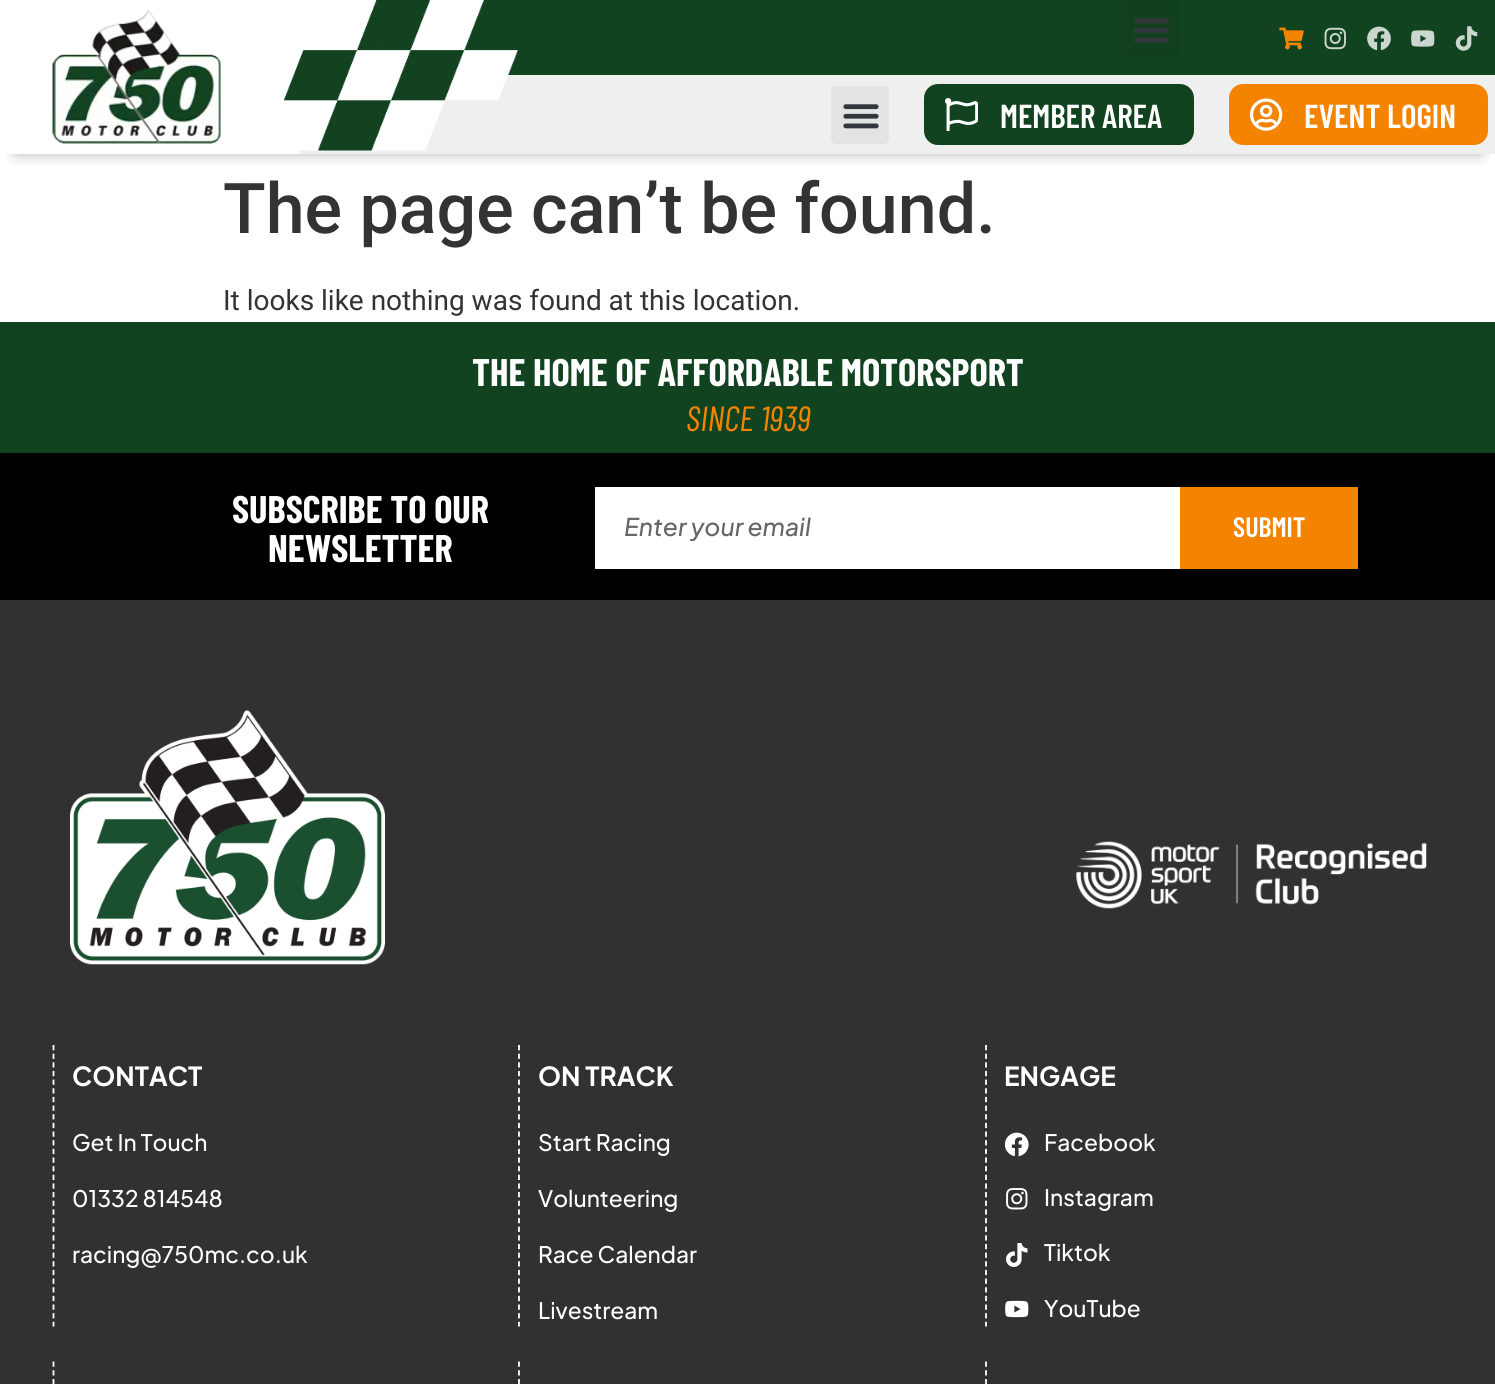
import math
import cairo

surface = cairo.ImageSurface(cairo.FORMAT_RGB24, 1495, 1384)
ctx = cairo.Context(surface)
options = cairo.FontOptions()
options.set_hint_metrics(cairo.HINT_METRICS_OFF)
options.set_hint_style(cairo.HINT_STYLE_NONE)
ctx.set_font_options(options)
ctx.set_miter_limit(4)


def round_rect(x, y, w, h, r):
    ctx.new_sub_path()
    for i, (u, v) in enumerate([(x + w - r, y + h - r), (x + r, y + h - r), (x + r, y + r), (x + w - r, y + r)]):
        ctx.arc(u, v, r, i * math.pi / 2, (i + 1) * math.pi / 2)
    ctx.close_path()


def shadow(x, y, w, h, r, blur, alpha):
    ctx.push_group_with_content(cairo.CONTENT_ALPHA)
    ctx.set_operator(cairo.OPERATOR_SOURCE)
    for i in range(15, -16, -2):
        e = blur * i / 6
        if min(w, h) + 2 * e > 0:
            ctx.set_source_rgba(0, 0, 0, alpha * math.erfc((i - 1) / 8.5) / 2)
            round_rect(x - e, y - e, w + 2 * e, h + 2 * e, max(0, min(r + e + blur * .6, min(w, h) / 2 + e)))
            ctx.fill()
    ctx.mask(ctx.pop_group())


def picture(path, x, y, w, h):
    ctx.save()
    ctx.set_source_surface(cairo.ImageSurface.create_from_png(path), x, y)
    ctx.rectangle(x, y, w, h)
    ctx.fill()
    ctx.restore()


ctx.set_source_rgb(1, 1, 1)
ctx.paint()
ctx.save()
ctx.rectangle(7, 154, 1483, 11)
ctx.clip()
ctx.set_source_rgb(0, 0, 0)
shadow(16, 26, 1465, 123, 0, 9, 0.5)
ctx.restore()
picture("img1.png", 52, 10, 169, 134)
ctx.set_source_rgb(0.071, 0.263, 0.125)
ctx.rectangle(299, 0, 1196, 75)
ctx.fill()
ctx.set_source_rgb(0.937, 0.937, 0.937)
ctx.rectangle(299, 75, 1196, 79)
ctx.fill()
picture("img2.png", 283, 0, 235, 151)
ctx.set_source_rgb(0.067, 0.251, 0.118)
round_rect(1122, 0, 58, 58, 5)
ctx.fill()
picture("img3.png", 1134, 18, 35, 25)
picture("img4.png", 1279, 27, 25, 23)
picture("img5.png", 1324, 27, 22, 23)
picture("img6.png", 1367, 26, 24, 25)
picture("img7.png", 1411, 30, 24, 17)
picture("img8.png", 1455, 26, 23, 25)
ctx.set_source_rgb(0.89, 0.89, 0.89)
round_rect(831, 86, 58, 58, 5)
ctx.fill()
picture("img9.png", 843, 104, 36, 25)
ctx.set_source_rgb(0.071, 0.263, 0.125)
round_rect(924, 84, 270, 61, 14)
ctx.fill()
picture("img10.png", 945, 98, 33, 33)
ctx.select_font_face("Barlow Condensed SemiBold")
ctx.set_font_size(33.25)
ctx.set_source_rgb(1, 1, 1)
ctx.move_to(1000, 128)
ctx.show_text("MEMBER AREA")
ctx.set_source_rgb(0.957, 0.518, 0)
round_rect(1229, 84, 259, 61, 14)
ctx.fill()
picture("img11.png", 1250, 98, 33, 33)
ctx.set_source_rgb(1, 1, 1)
ctx.move_to(1304, 128)
ctx.show_text("EVENT LOGIN")
ctx.select_font_face("Roboto Medium")
ctx.set_font_size(70)
ctx.set_source_rgb(0.2, 0.2, 0.2)
ctx.move_to(223, 233)
ctx.show_text("The page can’t be found.")
ctx.select_font_face("Roboto")
ctx.set_font_size(28)
ctx.move_to(223, 310)
ctx.show_text("It looks like nothing was found at this location.")
ctx.set_source_rgb(0.071, 0.263, 0.125)
ctx.rectangle(0, 322, 1495, 131)
ctx.fill()
ctx.select_font_face("Barlow Condensed", cairo.FONT_SLANT_NORMAL, cairo.FONT_WEIGHT_BOLD)
ctx.set_font_size(38.5)
ctx.set_source_rgb(1, 1, 1)
ctx.move_to(472, 386)
ctx.show_text("THE HOME OF AFFORDABLE MOTORSPORT")
ctx.select_font_face("Barlow Condensed", cairo.FONT_SLANT_ITALIC)
ctx.set_font_size(35)
ctx.set_source_rgb(0.957, 0.518, 0)
ctx.move_to(686, 431)
ctx.show_text("SINCE 1939")
ctx.set_source_rgb(0, 0, 0)
ctx.rectangle(0, 453, 1495, 147)
ctx.fill()
ctx.select_font_face("Barlow Condensed", cairo.FONT_SLANT_NORMAL, cairo.FONT_WEIGHT_BOLD)
ctx.set_font_size(38.5)
ctx.set_source_rgb(1, 1, 1)
ctx.move_to(232, 523)
ctx.show_text("SUBSCRIBE TO OUR")
ctx.move_to(268, 562)
ctx.show_text("NEWSLETTER")
ctx.rectangle(595, 487, 585, 82)
ctx.fill()
ctx.save()
ctx.rectangle(623, 509, 529, 32)
ctx.clip()
ctx.select_font_face("Plus Jakarta Sans Medium", cairo.FONT_SLANT_ITALIC)
ctx.set_font_size(24.5)
ctx.set_source_rgb(0.4, 0.4, 0.4)
ctx.move_to(624, 536)
ctx.show_text("Enter your email")
ctx.restore()
ctx.set_source_rgb(0.957, 0.518, 0)
ctx.rectangle(1180, 487, 178, 82)
ctx.fill()
ctx.select_font_face("Barlow Condensed SemiBold")
ctx.set_font_size(28)
ctx.set_source_rgb(1, 1, 1)
ctx.move_to(1233, 537)
ctx.show_text("SUBMIT")
ctx.set_source_rgb(0.192, 0.192, 0.192)
ctx.rectangle(0, 600, 1495, 784)
ctx.fill()
picture("img12.png", 70, 710, 315, 255)
picture("img13.png", 1076, 841, 351, 68)
ctx.new_path()
ctx.move_to(53.5, 1045)
ctx.line_to(53.5, 1326.5)
ctx.set_source_rgb(1, 1, 1)
ctx.set_line_width(1.8)
ctx.set_dash([5.25, 3.4])
ctx.stroke()
ctx.select_font_face("Plus Jakarta Sans", cairo.FONT_SLANT_NORMAL, cairo.FONT_WEIGHT_BOLD)
ctx.set_font_size(26.25)
ctx.move_to(72, 1086)
ctx.show_text("CONTACT")
ctx.select_font_face("Plus Jakarta Sans Medium")
ctx.set_font_size(22.75)
ctx.move_to(72, 1151)
ctx.show_text("Get In Touch")
ctx.move_to(72, 1207)
ctx.show_text("01332 814548")
ctx.move_to(72, 1263)
ctx.show_text("racing@750mc.co.uk")
ctx.new_path()
ctx.move_to(519, 1045)
ctx.line_to(519, 1326.5)
ctx.stroke()
ctx.select_font_face("Plus Jakarta Sans", cairo.FONT_SLANT_NORMAL, cairo.FONT_WEIGHT_BOLD)
ctx.set_font_size(26.25)
ctx.move_to(538, 1086)
ctx.show_text("ON TRACK")
ctx.select_font_face("Plus Jakarta Sans Medium")
ctx.set_font_size(22.75)
ctx.move_to(538, 1151)
ctx.show_text("Start Racing")
ctx.move_to(538, 1207)
ctx.show_text("Volunteering")
ctx.move_to(538, 1263)
ctx.show_text("Race Calendar")
ctx.move_to(538, 1319)
ctx.show_text("Livestream")
ctx.new_path()
ctx.move_to(986, 1045)
ctx.line_to(986, 1326.5)
ctx.stroke()
ctx.select_font_face("Plus Jakarta Sans", cairo.FONT_SLANT_NORMAL, cairo.FONT_WEIGHT_BOLD)
ctx.set_font_size(26.25)
ctx.move_to(1004, 1086)
ctx.show_text("ENGAGE")
picture("img14.png", 1005, 1132, 24, 25)
ctx.select_font_face("Plus Jakarta Sans Medium")
ctx.set_font_size(22.75)
ctx.move_to(1044, 1151)
ctx.show_text("Facebook")
picture("img15.png", 1006, 1188, 22, 22)
ctx.move_to(1044, 1206)
ctx.show_text("Instagram")
picture("img16.png", 1006, 1243, 22, 24)
ctx.move_to(1044, 1261)
ctx.show_text("Tiktok")
picture("img17.png", 1005, 1300, 24, 18)
ctx.move_to(1044, 1317)
ctx.show_text("YouTube")
ctx.new_path()
ctx.move_to(53.5, 1361.5)
ctx.line_to(53.5, 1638)
ctx.set_dash([5.25, 3.5])
ctx.stroke()
ctx.new_path()
ctx.move_to(519, 1361.5)
ctx.line_to(519, 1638)
ctx.stroke()
ctx.new_path()
ctx.move_to(986, 1361.5)
ctx.line_to(986, 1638)
ctx.stroke()
surface.write_to_png("page.png")
